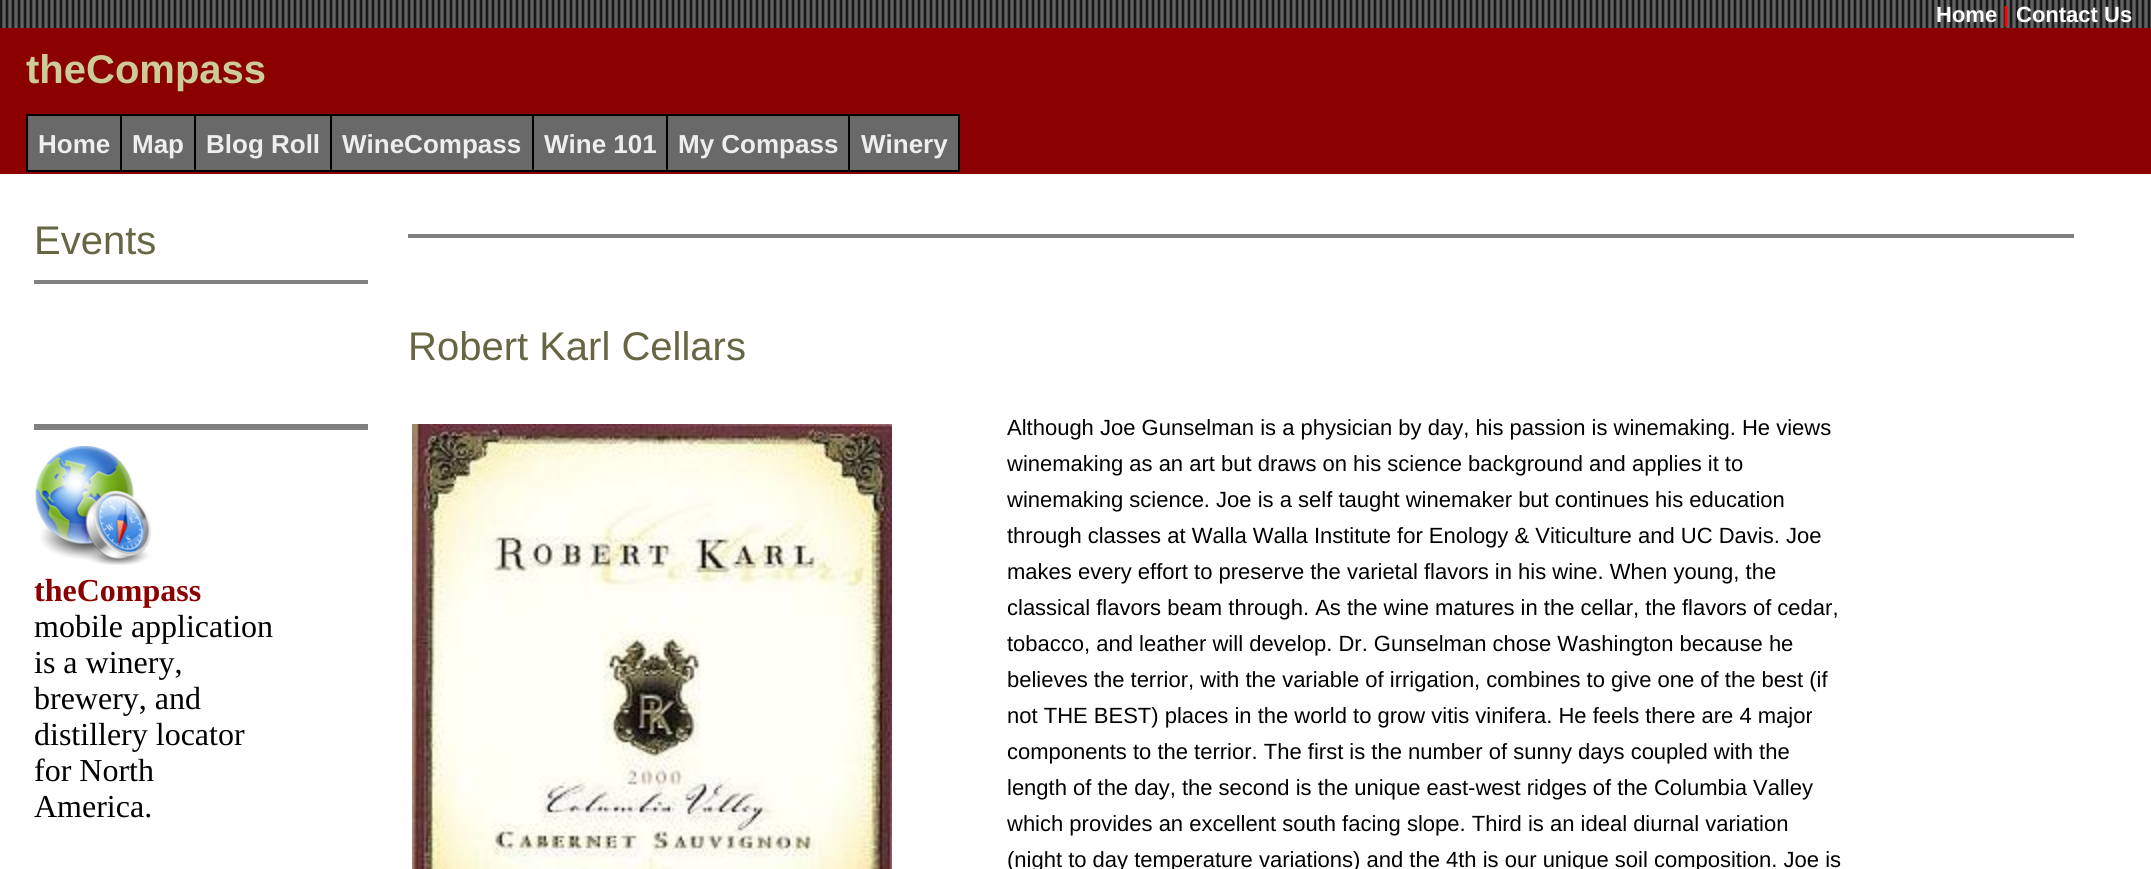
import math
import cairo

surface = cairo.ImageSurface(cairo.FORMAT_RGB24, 2151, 869)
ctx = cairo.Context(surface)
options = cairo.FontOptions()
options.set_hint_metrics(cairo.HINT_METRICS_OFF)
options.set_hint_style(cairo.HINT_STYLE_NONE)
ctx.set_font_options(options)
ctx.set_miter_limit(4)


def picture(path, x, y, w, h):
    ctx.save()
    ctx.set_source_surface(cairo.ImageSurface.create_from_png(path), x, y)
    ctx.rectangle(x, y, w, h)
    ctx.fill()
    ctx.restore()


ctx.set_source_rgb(1, 1, 1)
ctx.paint()
ctx.set_source_rgb(0.545, 0, 0)
ctx.rectangle(0, 28, 2151, 146)
ctx.fill()
picture("img1.png", 0, 0, 2151, 28)
ctx.select_font_face("Liberation Sans", cairo.FONT_SLANT_NORMAL, cairo.FONT_WEIGHT_BOLD)
ctx.set_font_size(22)
ctx.set_source_rgb(1, 1, 1)
ctx.move_to(1936, 22)
ctx.show_text("Home")
ctx.set_source_rgb(1, 0, 0)
ctx.move_to(2003, 22)
ctx.show_text("|")
ctx.set_source_rgb(1, 1, 1)
ctx.move_to(2016, 22)
ctx.show_text("Contact Us")
ctx.set_font_size(40)
ctx.set_source_rgb(0.8, 0.8, 0.6)
ctx.move_to(26, 83)
ctx.show_text("theCompass")
ctx.set_source_rgb(0.412, 0.412, 0.412)
ctx.rectangle(28, 116, 930, 54)
ctx.fill()
ctx.set_source_rgb(0, 0, 0)
ctx.rectangle(848, 114, 112, 2)
ctx.fill()
ctx.rectangle(958, 114, 2, 58)
ctx.fill()
ctx.rectangle(848, 170, 112, 2)
ctx.fill()
ctx.rectangle(848, 114, 2, 58)
ctx.fill()
ctx.rectangle(666, 114, 184, 2)
ctx.fill()
ctx.rectangle(666, 170, 184, 2)
ctx.fill()
ctx.rectangle(666, 114, 2, 58)
ctx.fill()
ctx.rectangle(532, 114, 136, 2)
ctx.fill()
ctx.rectangle(532, 170, 136, 2)
ctx.fill()
ctx.rectangle(532, 114, 2, 58)
ctx.fill()
ctx.rectangle(330, 114, 204, 2)
ctx.fill()
ctx.rectangle(330, 170, 204, 2)
ctx.fill()
ctx.rectangle(330, 114, 2, 58)
ctx.fill()
ctx.rectangle(194, 114, 138, 2)
ctx.fill()
ctx.rectangle(194, 170, 138, 2)
ctx.fill()
ctx.rectangle(194, 114, 2, 58)
ctx.fill()
ctx.rectangle(120, 114, 76, 2)
ctx.fill()
ctx.rectangle(120, 170, 76, 2)
ctx.fill()
ctx.rectangle(120, 114, 2, 58)
ctx.fill()
ctx.rectangle(26, 114, 96, 2)
ctx.fill()
ctx.rectangle(26, 170, 96, 2)
ctx.fill()
ctx.rectangle(26, 114, 2, 58)
ctx.fill()
ctx.set_font_size(26)
ctx.set_source_rgb(0.933, 0.933, 0.933)
ctx.move_to(38, 153)
ctx.show_text("Home")
ctx.move_to(132, 153)
ctx.show_text("Map")
ctx.move_to(206, 153)
ctx.show_text("Blog Roll")
ctx.move_to(342, 153)
ctx.show_text("WineCompass")
ctx.move_to(544, 153)
ctx.show_text("Wine 101")
ctx.move_to(678, 153)
ctx.show_text("My Compass")
ctx.move_to(861, 153)
ctx.show_text("Winery")
ctx.select_font_face("Liberation Sans")
ctx.set_font_size(40)
ctx.set_source_rgb(0.4, 0.4, 0.267)
ctx.move_to(34, 254)
ctx.show_text("Events")
ctx.set_source_rgb(0.502, 0.502, 0.502)
ctx.rectangle(36, 282, 330, 2)
ctx.fill()
ctx.rectangle(34, 280, 334, 2)
ctx.fill()
ctx.rectangle(366, 280, 2, 4)
ctx.fill()
ctx.rectangle(34, 280, 2, 4)
ctx.fill()
ctx.rectangle(36, 426, 330, 4)
ctx.fill()
ctx.rectangle(34, 424, 334, 2)
ctx.fill()
ctx.rectangle(366, 424, 2, 6)
ctx.fill()
ctx.rectangle(34, 424, 2, 6)
ctx.fill()
picture("img2.png", 35, 446, 117, 119)
ctx.select_font_face("Liberation Serif", cairo.FONT_SLANT_NORMAL, cairo.FONT_WEIGHT_BOLD)
ctx.set_font_size(32)
ctx.set_source_rgb(0.545, 0, 0)
ctx.move_to(34, 601)
ctx.show_text("theCompass")
ctx.select_font_face("Liberation Serif")
ctx.set_source_rgb(0, 0, 0)
ctx.move_to(34, 637)
ctx.show_text("mobile application")
ctx.move_to(34, 673)
ctx.show_text("is a winery,")
ctx.move_to(34, 709)
ctx.show_text("brewery, and")
ctx.move_to(34, 745)
ctx.show_text("distillery locator")
ctx.move_to(34, 781)
ctx.show_text("for North")
ctx.move_to(34, 817)
ctx.show_text("America.")
ctx.set_source_rgb(0.502, 0.502, 0.502)
ctx.rectangle(410, 236, 1662, 2)
ctx.fill()
ctx.rectangle(408, 234, 1666, 2)
ctx.fill()
ctx.rectangle(2072, 234, 2, 4)
ctx.fill()
ctx.rectangle(408, 234, 2, 4)
ctx.fill()
ctx.select_font_face("Liberation Sans")
ctx.set_font_size(40)
ctx.set_source_rgb(0.4, 0.4, 0.267)
ctx.move_to(408, 360)
ctx.show_text("Robert Karl Cellars")
picture("img3.png", 412, 424, 480, 445)
ctx.set_font_size(22)
ctx.set_source_rgb(0, 0, 0)
ctx.move_to(1007, 435)
ctx.show_text("Although Joe Gunselman is a physician by day, his passion is winemaking. He views")
ctx.move_to(1007, 471)
ctx.show_text("winemaking as an art but draws on his science background and applies it to")
ctx.move_to(1007, 507)
ctx.show_text("winemaking science. Joe is a self taught winemaker but continues his education")
ctx.move_to(1007, 543)
ctx.show_text("through classes at Walla Walla Institute for Enology & Viticulture and UC Davis. Joe")
ctx.move_to(1007, 579)
ctx.show_text("makes every effort to preserve the varietal flavors in his wine. When young, the")
ctx.move_to(1007, 615)
ctx.show_text("classical flavors beam through. As the wine matures in the cellar, the flavors of cedar,")
ctx.move_to(1007, 651)
ctx.show_text("tobacco, and leather will develop. Dr. Gunselman chose Washington because he")
ctx.move_to(1007, 687)
ctx.show_text("believes the terrior, with the variable of irrigation, combines to give one of the best (if")
ctx.move_to(1007, 723)
ctx.show_text("not THE BEST) places in the world to grow vitis vinifera. He feels there are 4 major")
ctx.move_to(1007, 759)
ctx.show_text("components to the terrior. The first is the number of sunny days coupled with the")
ctx.move_to(1007, 795)
ctx.show_text("length of the day, the second is the unique east-west ridges of the Columbia Valley")
ctx.move_to(1007, 831)
ctx.show_text("which provides an excellent south facing slope. Third is an ideal diurnal variation")
ctx.move_to(1007, 867)
ctx.show_text("(night to day temperature variations) and the 4th is our unique soil composition. Joe is")
surface.write_to_png("page.png")
